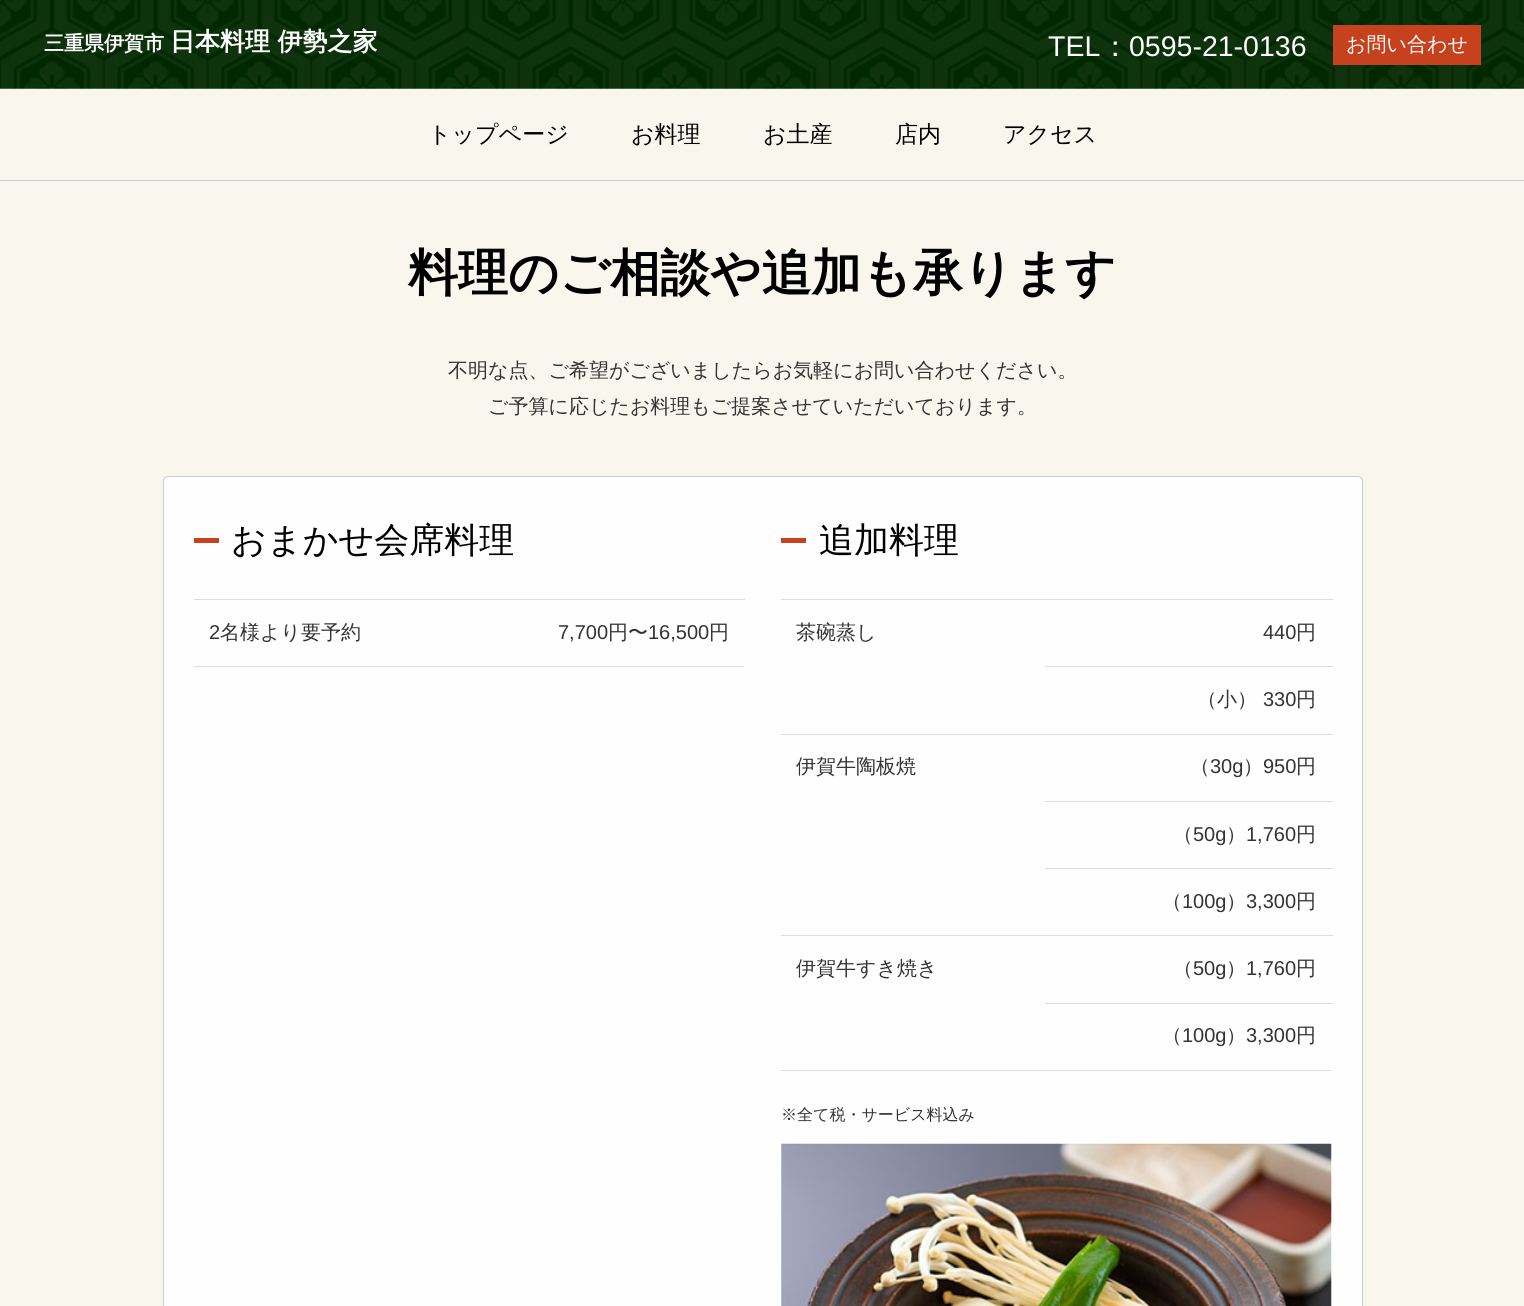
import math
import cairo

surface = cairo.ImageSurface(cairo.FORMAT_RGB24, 1524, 1306)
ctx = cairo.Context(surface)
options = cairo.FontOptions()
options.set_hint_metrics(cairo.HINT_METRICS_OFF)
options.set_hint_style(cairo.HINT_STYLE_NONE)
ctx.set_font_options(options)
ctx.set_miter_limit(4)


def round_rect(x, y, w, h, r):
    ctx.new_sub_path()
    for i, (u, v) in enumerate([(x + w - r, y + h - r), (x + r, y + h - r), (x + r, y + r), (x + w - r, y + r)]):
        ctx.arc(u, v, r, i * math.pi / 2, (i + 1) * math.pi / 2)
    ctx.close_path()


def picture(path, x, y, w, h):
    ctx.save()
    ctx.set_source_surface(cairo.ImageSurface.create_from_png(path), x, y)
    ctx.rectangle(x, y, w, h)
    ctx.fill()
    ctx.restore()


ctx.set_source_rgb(0.969, 0.961, 0.929)
ctx.paint()
picture("img1.png", 0, 0, 1524, 89)
ctx.select_font_face("WenQuanYi Zen Hei", cairo.FONT_SLANT_NORMAL, cairo.FONT_WEIGHT_BOLD)
ctx.set_font_size(20)
ctx.set_source_rgb(1, 1, 1)
ctx.move_to(44, 50)
ctx.show_text("三重県伊賀市")
ctx.set_font_size(25)
ctx.move_to(170, 50)
ctx.show_text("日本料理 伊勢之家")
ctx.select_font_face("Liberation Sans")
ctx.set_font_size(28.5)
ctx.move_to(1048, 56)
ctx.show_text("TEL")
ctx.select_font_face("WenQuanYi Zen Hei Medium")
ctx.move_to(1101, 56)
ctx.show_text("：")
ctx.select_font_face("Liberation Sans")
ctx.move_to(1129, 56)
ctx.show_text("0595-21-0136")
ctx.set_source_rgb(0.776, 0.255, 0.114)
ctx.rectangle(1333, 25, 148, 40)
ctx.fill()
ctx.select_font_face("WenQuanYi Zen Hei Medium")
ctx.set_font_size(20)
ctx.set_source_rgb(1, 1, 1)
ctx.move_to(1346, 51)
ctx.show_text("お問い合わせ")
ctx.set_source_rgb(0.8, 0.8, 0.8)
ctx.rectangle(0, 180, 1524, 1)
ctx.fill()
ctx.set_font_size(23)
ctx.set_source_rgb(0, 0, 0)
ctx.move_to(428, 142)
ctx.show_text("トップページ")
ctx.move_to(631, 142)
ctx.show_text("お料理")
ctx.move_to(763, 142)
ctx.show_text("お土産")
ctx.move_to(895, 142)
ctx.show_text("店内")
ctx.move_to(1003, 142)
ctx.show_text("アクセス")
ctx.select_font_face("WenQuanYi Zen Hei", cairo.FONT_SLANT_NORMAL, cairo.FONT_WEIGHT_BOLD)
ctx.set_font_size(50)
ctx.move_to(408, 290)
ctx.show_text("料理のご相談や追加も承ります")
ctx.select_font_face("WenQuanYi Zen Hei Medium")
ctx.set_font_size(20)
ctx.set_source_rgb(0.2, 0.2, 0.2)
ctx.move_to(448, 377)
ctx.show_text("不明な点、ご希望がございましたらお気軽にお問い合わせください。")
ctx.move_to(488, 413)
ctx.show_text("ご予算に応じたお料理もご提案させていただいております。")
ctx.set_source_rgb(0.996, 0.996, 0.996)
round_rect(163.5, 476.5, 1199, 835, 4.5)
ctx.fill_preserve()
ctx.set_source_rgb(0.8, 0.8, 0.8)
ctx.set_line_width(1)
ctx.stroke()
ctx.set_source_rgb(0.776, 0.255, 0.114)
ctx.rectangle(194, 538, 25, 5)
ctx.fill()
ctx.set_font_size(35)
ctx.set_source_rgb(0, 0, 0)
ctx.move_to(231, 552)
ctx.show_text("おまかせ会席料理")
ctx.set_source_rgb(0.867, 0.867, 0.867)
ctx.rectangle(194, 666, 550, 1)
ctx.fill()
ctx.select_font_face("Liberation Sans")
ctx.set_font_size(20)
ctx.set_source_rgb(0.2, 0.2, 0.2)
ctx.move_to(209, 639)
ctx.show_text("2")
ctx.select_font_face("WenQuanYi Zen Hei Medium")
ctx.move_to(220, 639)
ctx.show_text("名様より要予約")
ctx.set_source_rgb(0.867, 0.867, 0.867)
ctx.rectangle(194, 599, 551, 1)
ctx.fill()
ctx.select_font_face("Liberation Sans")
ctx.set_source_rgb(0.2, 0.2, 0.2)
ctx.move_to(558, 639)
ctx.show_text("7,700")
ctx.select_font_face("WenQuanYi Zen Hei Medium")
ctx.move_to(608, 639)
ctx.show_text("円〜")
ctx.select_font_face("Liberation Sans")
ctx.move_to(648, 639)
ctx.show_text("16,500")
ctx.select_font_face("WenQuanYi Zen Hei Medium")
ctx.move_to(709, 639)
ctx.show_text("円")
ctx.set_source_rgb(0.776, 0.255, 0.114)
ctx.rectangle(781, 538, 25, 5)
ctx.fill()
ctx.set_font_size(35)
ctx.set_source_rgb(0, 0, 0)
ctx.move_to(819, 552)
ctx.show_text("追加料理")
ctx.set_source_rgb(0.867, 0.867, 0.867)
ctx.rectangle(781, 1070, 550, 1)
ctx.fill()
ctx.set_font_size(20)
ctx.set_source_rgb(0.2, 0.2, 0.2)
ctx.move_to(796, 639)
ctx.show_text("茶碗蒸し")
ctx.set_source_rgb(0.867, 0.867, 0.867)
ctx.rectangle(781, 599, 552, 1)
ctx.fill()
ctx.select_font_face("Liberation Sans")
ctx.set_source_rgb(0.2, 0.2, 0.2)
ctx.move_to(1263, 639)
ctx.show_text("440")
ctx.select_font_face("WenQuanYi Zen Hei Medium")
ctx.move_to(1296, 639)
ctx.show_text("円")
ctx.set_source_rgb(0.867, 0.867, 0.867)
ctx.rectangle(1045, 666, 288, 1)
ctx.fill()
ctx.set_source_rgb(0.2, 0.2, 0.2)
ctx.move_to(1197, 706)
ctx.show_text("（小）")
ctx.select_font_face("Liberation Sans")
ctx.move_to(1263, 706)
ctx.show_text("330")
ctx.select_font_face("WenQuanYi Zen Hei Medium")
ctx.move_to(1296, 706)
ctx.show_text("円")
ctx.move_to(796, 773)
ctx.show_text("伊賀牛陶板焼")
ctx.set_source_rgb(0.867, 0.867, 0.867)
ctx.rectangle(781, 734, 552, 1)
ctx.fill()
ctx.set_source_rgb(0.2, 0.2, 0.2)
ctx.move_to(1190, 773)
ctx.show_text("（")
ctx.select_font_face("Liberation Sans")
ctx.move_to(1210, 773)
ctx.show_text("30g")
ctx.select_font_face("WenQuanYi Zen Hei Medium")
ctx.move_to(1243, 773)
ctx.show_text("）")
ctx.select_font_face("Liberation Sans")
ctx.move_to(1263, 773)
ctx.show_text("950")
ctx.select_font_face("WenQuanYi Zen Hei Medium")
ctx.move_to(1296, 773)
ctx.show_text("円")
ctx.set_source_rgb(0.867, 0.867, 0.867)
ctx.rectangle(1045, 801, 288, 1)
ctx.fill()
ctx.set_source_rgb(0.2, 0.2, 0.2)
ctx.move_to(1173, 841)
ctx.show_text("（")
ctx.select_font_face("Liberation Sans")
ctx.move_to(1193, 841)
ctx.show_text("50g")
ctx.select_font_face("WenQuanYi Zen Hei Medium")
ctx.move_to(1226, 841)
ctx.show_text("）")
ctx.select_font_face("Liberation Sans")
ctx.move_to(1246, 841)
ctx.show_text("1,760")
ctx.select_font_face("WenQuanYi Zen Hei Medium")
ctx.move_to(1296, 841)
ctx.show_text("円")
ctx.set_source_rgb(0.867, 0.867, 0.867)
ctx.rectangle(1045, 868, 288, 1)
ctx.fill()
ctx.set_source_rgb(0.2, 0.2, 0.2)
ctx.move_to(1162, 908)
ctx.show_text("（")
ctx.select_font_face("Liberation Sans")
ctx.move_to(1182, 908)
ctx.show_text("100g")
ctx.select_font_face("WenQuanYi Zen Hei Medium")
ctx.move_to(1226, 908)
ctx.show_text("）")
ctx.select_font_face("Liberation Sans")
ctx.move_to(1246, 908)
ctx.show_text("3,300")
ctx.select_font_face("WenQuanYi Zen Hei Medium")
ctx.move_to(1296, 908)
ctx.show_text("円")
ctx.move_to(796, 975)
ctx.show_text("伊賀牛すき焼き")
ctx.set_source_rgb(0.867, 0.867, 0.867)
ctx.rectangle(781, 935, 552, 1)
ctx.fill()
ctx.set_source_rgb(0.2, 0.2, 0.2)
ctx.move_to(1173, 975)
ctx.show_text("（")
ctx.select_font_face("Liberation Sans")
ctx.move_to(1193, 975)
ctx.show_text("50g")
ctx.select_font_face("WenQuanYi Zen Hei Medium")
ctx.move_to(1226, 975)
ctx.show_text("）")
ctx.select_font_face("Liberation Sans")
ctx.move_to(1246, 975)
ctx.show_text("1,760")
ctx.select_font_face("WenQuanYi Zen Hei Medium")
ctx.move_to(1296, 975)
ctx.show_text("円")
ctx.set_source_rgb(0.867, 0.867, 0.867)
ctx.rectangle(1045, 1003, 288, 1)
ctx.fill()
ctx.set_source_rgb(0.2, 0.2, 0.2)
ctx.move_to(1162, 1042)
ctx.show_text("（")
ctx.select_font_face("Liberation Sans")
ctx.move_to(1182, 1042)
ctx.show_text("100g")
ctx.select_font_face("WenQuanYi Zen Hei Medium")
ctx.move_to(1226, 1042)
ctx.show_text("）")
ctx.select_font_face("Liberation Sans")
ctx.move_to(1246, 1042)
ctx.show_text("3,300")
ctx.select_font_face("WenQuanYi Zen Hei Medium")
ctx.move_to(1296, 1042)
ctx.show_text("円")
ctx.set_font_size(16)
ctx.move_to(781, 1120)
ctx.show_text("※全て税・サービス料込み")
picture("img2.png", 781, 1143, 551, 163)
surface.write_to_png("page.png")
